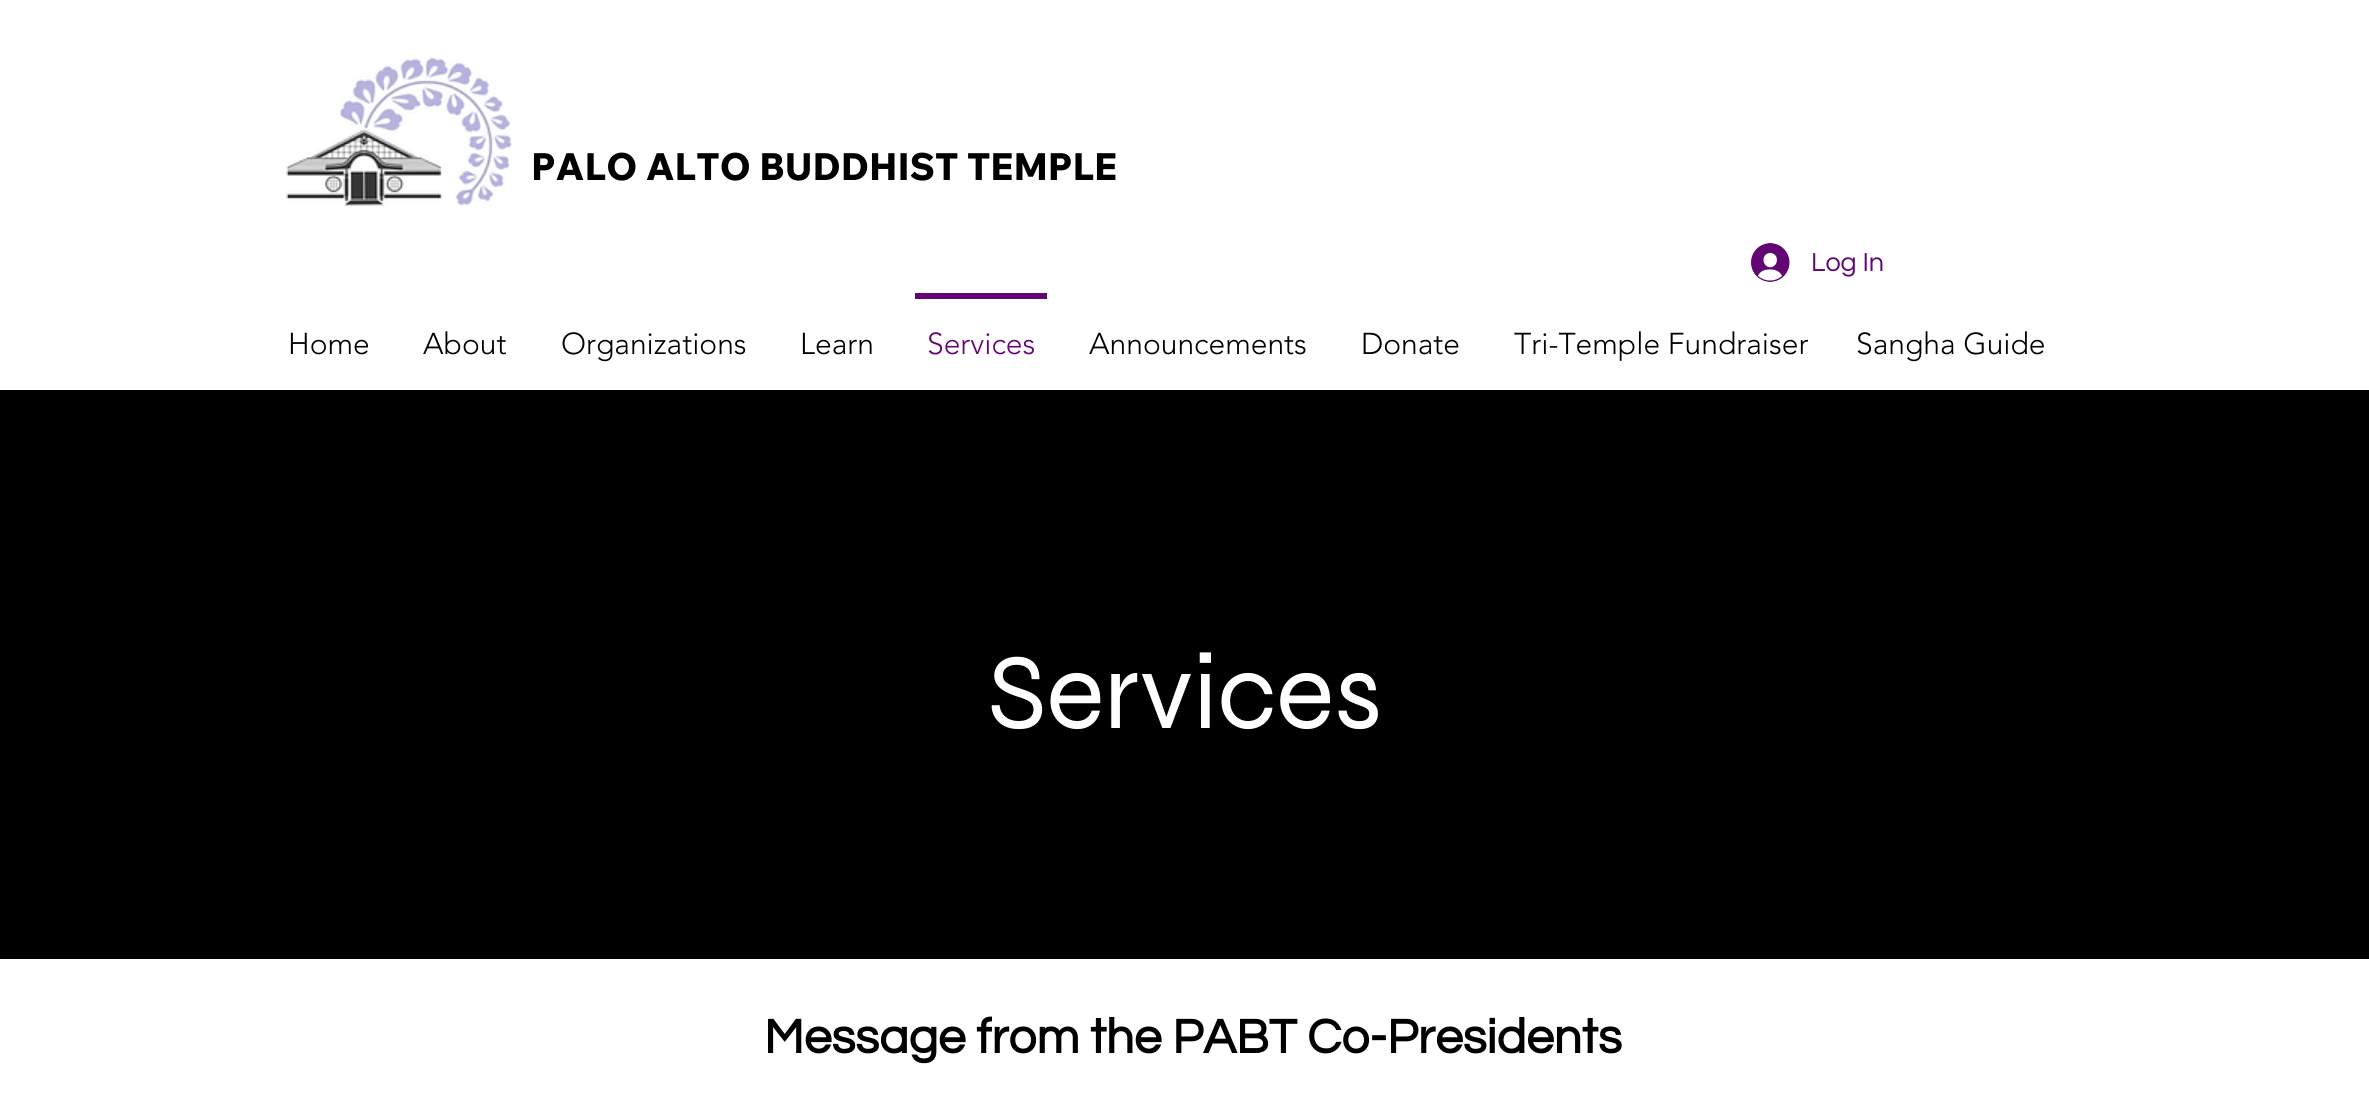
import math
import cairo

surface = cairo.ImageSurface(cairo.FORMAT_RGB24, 2369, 1111)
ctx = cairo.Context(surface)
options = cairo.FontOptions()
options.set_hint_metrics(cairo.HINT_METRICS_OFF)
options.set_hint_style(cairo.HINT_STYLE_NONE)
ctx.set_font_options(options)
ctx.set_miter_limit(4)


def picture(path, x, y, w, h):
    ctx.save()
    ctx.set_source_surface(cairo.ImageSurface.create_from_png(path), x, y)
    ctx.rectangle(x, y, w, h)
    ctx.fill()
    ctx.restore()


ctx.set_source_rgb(1, 1, 1)
ctx.paint()
picture("img1.png", 286, 58, 226, 148)
ctx.select_font_face("Wix Madefor Text ExtraBold")
ctx.set_font_size(37.5)
ctx.set_source_rgb(0, 0, 0)
ctx.move_to(531, 180)
ctx.show_text("PALO ALTO BUDDHIST TEMPLE")
picture("img2.png", 1751, 243, 39, 39)
ctx.select_font_face("Questrial")
ctx.set_font_size(27)
ctx.set_source_rgb(0.384, 0.024, 0.455)
ctx.move_to(1811, 271)
ctx.show_text("Log In")
ctx.select_font_face("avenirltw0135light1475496 Light")
ctx.set_font_size(30)
ctx.set_source_rgb(0, 0, 0)
ctx.move_to(288, 354)
ctx.show_text("Home")
ctx.move_to(423, 354)
ctx.show_text("About")
ctx.move_to(561, 354)
ctx.show_text("Organizations")
ctx.move_to(800, 354)
ctx.show_text("Learn")
ctx.set_source_rgb(0.384, 0.024, 0.455)
ctx.rectangle(915, 293, 132, 6)
ctx.fill()
ctx.move_to(927, 354)
ctx.show_text("Services")
ctx.set_source_rgb(0, 0, 0)
ctx.move_to(1089, 354)
ctx.show_text("Announcements")
ctx.move_to(1361, 354)
ctx.show_text("Donate")
ctx.move_to(1514, 354)
ctx.show_text("Tri-Temple Fundraiser")
ctx.move_to(1856, 354)
ctx.show_text("Sangha Guide")
ctx.rectangle(0, 390, 2369, 569)
ctx.fill()
ctx.select_font_face("Syne")
ctx.set_font_size(108)
ctx.set_source_rgb(1, 1, 1)
ctx.move_to(988, 728)
ctx.show_text("Services")
ctx.select_font_face("Questrial", cairo.FONT_SLANT_NORMAL, cairo.FONT_WEIGHT_BOLD)
ctx.set_font_size(49.5)
ctx.set_source_rgb(0, 0, 0)
ctx.move_to(764, 1053)
ctx.show_text("Message from the PABT Co-Presidents")
surface.write_to_png("page.png")
